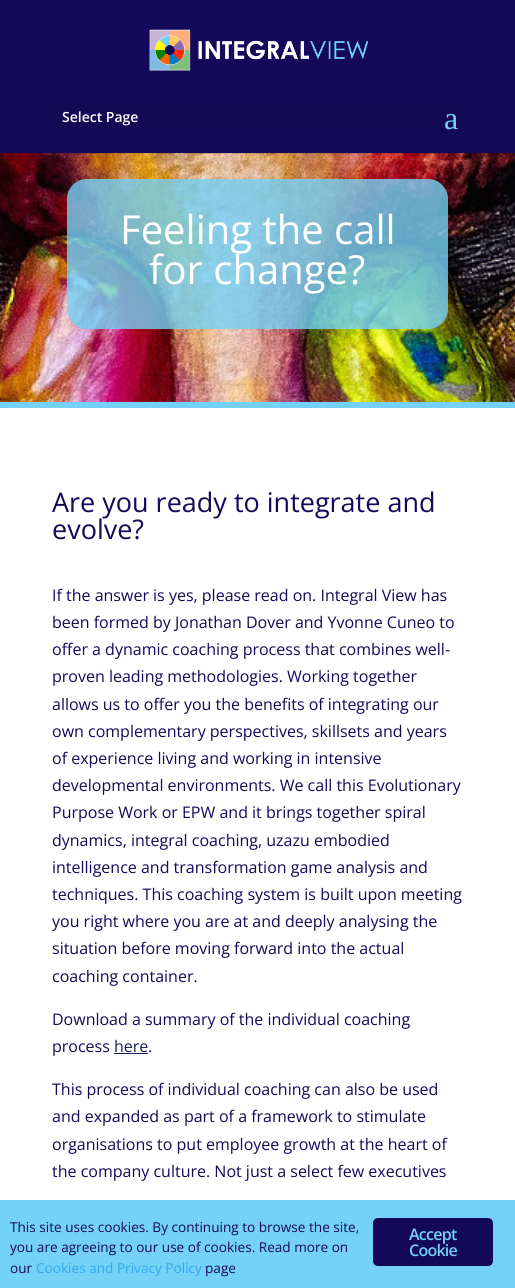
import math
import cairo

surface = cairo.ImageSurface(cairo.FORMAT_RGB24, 515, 1288)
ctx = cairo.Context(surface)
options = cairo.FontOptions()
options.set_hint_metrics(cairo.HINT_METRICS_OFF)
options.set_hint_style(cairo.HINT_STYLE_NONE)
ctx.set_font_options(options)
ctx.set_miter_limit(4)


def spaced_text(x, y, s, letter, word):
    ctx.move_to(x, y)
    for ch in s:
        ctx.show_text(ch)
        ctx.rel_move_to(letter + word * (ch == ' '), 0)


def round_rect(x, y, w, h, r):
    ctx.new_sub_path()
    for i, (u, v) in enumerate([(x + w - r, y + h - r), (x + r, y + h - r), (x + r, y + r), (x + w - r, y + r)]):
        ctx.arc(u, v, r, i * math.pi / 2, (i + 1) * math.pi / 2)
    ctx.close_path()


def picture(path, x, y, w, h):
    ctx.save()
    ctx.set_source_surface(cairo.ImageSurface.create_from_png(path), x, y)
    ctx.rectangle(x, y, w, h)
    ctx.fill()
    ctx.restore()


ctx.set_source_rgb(0.455, 0.82, 0.965)
ctx.paint()
picture("img2.png", 0, 153, 515, 249)
ctx.set_source_rgba(0, 0, 0, 0.1)
ctx.rectangle(0, 153, 515, 1)
ctx.fill()
ctx.set_source_rgb(0.082, 0.039, 0.349)
ctx.rectangle(0, 0, 515, 153)
ctx.fill()
picture("img1.png", 149, 29, 219, 42)
ctx.set_source_rgb(0.078, 0.039, 0.333)
round_rect(52, 100, 412, 33, 5)
ctx.fill()
ctx.select_font_face("Open Sans SemiBold")
ctx.set_font_size(14)
ctx.set_source_rgb(1, 1, 1)
ctx.move_to(62, 122)
ctx.show_text("Select Page")
ctx.select_font_face("Liberation Serif")
ctx.set_font_size(32)
ctx.set_source_rgb(0.455, 0.82, 0.965)
ctx.move_to(444, 129)
ctx.show_text("a")
ctx.set_source_rgba(0.455, 0.82, 0.965, 0.8)
round_rect(67, 179, 381, 150, 20)
ctx.fill()
ctx.select_font_face("Open Sans")
ctx.set_font_size(40)
ctx.set_source_rgb(1, 1, 1)
ctx.move_to(120, 244)
ctx.show_text("Feeling the call")
ctx.move_to(149, 284)
ctx.show_text("for change?")
ctx.rectangle(0, 408, 515, 792)
ctx.fill()
ctx.set_font_size(27)
ctx.set_source_rgb(0.082, 0.039, 0.349)
ctx.move_to(52, 512)
ctx.show_text("Are you ready to integrate and")
ctx.move_to(52, 539)
ctx.show_text("evolve?")
ctx.set_font_size(16)
ctx.move_to(52, 601)
ctx.show_text("If the answer is yes, please read on. Integral View has")
ctx.move_to(52, 628)
ctx.show_text("been formed by Jonathan Dover and Yvonne Cuneo to")
ctx.move_to(52, 655)
ctx.show_text("offer a dynamic coaching process that combines well-")
ctx.move_to(52, 682)
ctx.show_text("proven leading methodologies. Working together")
ctx.move_to(52, 710)
ctx.show_text("allows us to offer you the benefits of integrating our")
ctx.move_to(52, 737)
ctx.show_text("own complementary perspectives, skillsets and years")
ctx.move_to(52, 764)
ctx.show_text("of experience living and working in intensive")
ctx.move_to(52, 791)
ctx.show_text("developmental environments. We call this Evolutionary")
ctx.move_to(52, 818)
ctx.show_text("Purpose Work or EPW and it brings together spiral")
ctx.move_to(52, 846)
ctx.show_text("dynamics, integral coaching, uzazu embodied")
ctx.move_to(52, 873)
ctx.show_text("intelligence and transformation game analysis and")
ctx.move_to(52, 900)
ctx.show_text("techniques. This coaching system is built upon meeting")
ctx.move_to(52, 927)
ctx.show_text("you right where you are at and deeply analysing the")
ctx.move_to(52, 954)
ctx.show_text("situation before moving forward into the actual")
ctx.move_to(52, 982)
ctx.show_text("coaching container.")
ctx.move_to(52, 1025)
ctx.show_text("Download a summary of the individual coaching")
ctx.move_to(52, 1052)
ctx.show_text("process")
ctx.set_source_rgb(0.102, 0.11, 0.349)
ctx.move_to(114, 1052)
ctx.show_text("here")
ctx.rectangle(114, 1053, 34, 1)
ctx.fill()
ctx.set_source_rgb(0.082, 0.039, 0.349)
ctx.move_to(148, 1052)
ctx.show_text(".")
ctx.move_to(52, 1095)
ctx.show_text("This process of individual coaching can also be used")
ctx.move_to(52, 1122)
ctx.show_text("and expanded as part of a framework to stimulate")
ctx.move_to(52, 1150)
ctx.show_text("organisations to put employee growth at the heart of")
ctx.move_to(52, 1177)
ctx.show_text("the company culture. Not just a select few executives")
ctx.set_font_size(13.6)
ctx.move_to(10, 1232)
ctx.show_text("This site uses cookies. By continuing to browse the site,")
ctx.move_to(10, 1252)
ctx.show_text("you are agreeing to our use of cookies. Read more on")
ctx.move_to(10, 1273)
ctx.show_text("our")
ctx.set_source_rgb(0.192, 0.659, 0.941)
ctx.move_to(36, 1273)
ctx.show_text("Cookies and Privacy Policy")
ctx.set_source_rgb(0.082, 0.039, 0.349)
ctx.move_to(205, 1273)
ctx.show_text("page")
round_rect(373, 1218, 120, 48, 5)
ctx.fill()
ctx.select_font_face("Open Sans SemiBold")
ctx.set_font_size(16)
ctx.set_source_rgb(0.455, 0.82, 0.965)
spaced_text(409, 1240, "Accept", -0.75, 0)
spaced_text(409, 1256, "Cookie", -0.75, 0)
surface.write_to_png("page.png")
